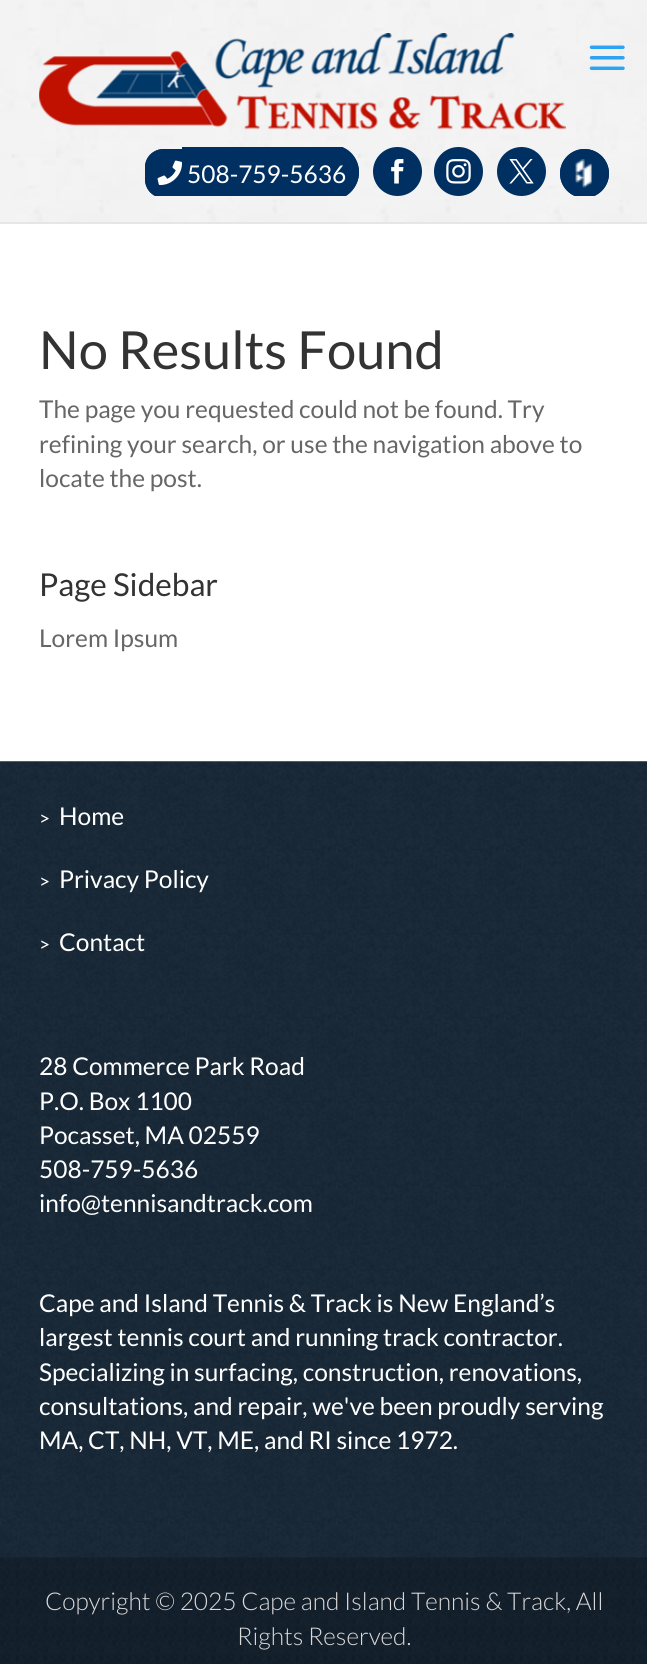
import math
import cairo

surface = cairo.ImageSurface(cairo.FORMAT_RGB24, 647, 1664)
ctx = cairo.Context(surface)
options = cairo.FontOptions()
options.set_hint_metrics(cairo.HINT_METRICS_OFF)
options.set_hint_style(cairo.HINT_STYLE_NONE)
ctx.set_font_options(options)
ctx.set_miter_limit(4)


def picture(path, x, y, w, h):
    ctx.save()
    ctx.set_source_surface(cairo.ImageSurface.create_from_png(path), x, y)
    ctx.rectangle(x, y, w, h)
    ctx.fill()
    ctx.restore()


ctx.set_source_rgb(1, 1, 1)
ctx.paint()
ctx.set_source_rgb(0.902, 0.902, 0.902)
ctx.new_path()
ctx.move_to(0, 222)
ctx.line_to(0, 224)
ctx.line_to(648, 224)
ctx.line_to(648, 2)
ctx.line_to(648, 222)
ctx.close_path()
ctx.fill()
picture("img1.png", 0, 0, 647, 222)
picture("img2.png", 39, 33, 527, 97)
picture("img3.png", 589, 45, 36, 25)
ctx.save()
ctx.rectangle(137, 147, 472, 49)
ctx.clip()
ctx.set_source_rgb(0, 0.184, 0.38)
ctx.new_path()
ctx.move_to(163.5, 149)
ctx.line_to(182, 149)
ctx.line_to(182, 198)
ctx.line_to(163.5, 198)
ctx.curve_to(153.5, 198, 145, 189.5, 145, 179.5)
ctx.line_to(145, 167.5)
ctx.curve_to(145, 157.5, 153.5, 149, 163.5, 149)
ctx.close_path()
ctx.fill()
ctx.set_fill_rule(cairo.FILL_RULE_EVEN_ODD)
ctx.new_path()
ctx.move_to(164, 149)
ctx.line_to(182, 149)
ctx.line_to(182, 198)
ctx.line_to(164, 198)
ctx.curve_to(153, 198, 145, 190, 145, 179)
ctx.line_to(145, 167)
ctx.curve_to(145, 157, 153, 149, 164, 149)
ctx.close_path()
ctx.move_to(164, 161)
ctx.line_to(182, 161)
ctx.line_to(182, 186)
ctx.line_to(164, 186)
ctx.curve_to(160, 186, 158, 183, 158, 179)
ctx.line_to(158, 167)
ctx.curve_to(158, 164, 160, 161, 164, 161)
ctx.close_path()
ctx.fill()
ctx.new_path()
ctx.move_to(182, 145)
ctx.line_to(331.5, 145)
ctx.curve_to(346.5, 145, 359, 157.5, 359, 172.5)
ctx.curve_to(359, 187.5, 346.5, 200, 331.5, 200)
ctx.line_to(182, 200)
ctx.close_path()
ctx.fill()
ctx.new_path()
ctx.move_to(182, 145)
ctx.line_to(332, 145)
ctx.curve_to(347, 145, 359, 157, 359, 172)
ctx.curve_to(359, 187, 347, 200, 332, 200)
ctx.line_to(182, 200)
ctx.close_path()
ctx.move_to(182, 158)
ctx.line_to(332, 158)
ctx.curve_to(340, 158, 346, 164, 346, 172)
ctx.curve_to(346, 181, 340, 187, 332, 187)
ctx.line_to(182, 187)
ctx.close_path()
ctx.fill()
ctx.restore()
picture("img4.png", 157, 160, 25, 26)
ctx.select_font_face("Lato")
ctx.set_font_size(24.5)
ctx.set_source_rgb(1, 1, 1)
ctx.move_to(187, 183)
ctx.show_text("508-759-5636")
ctx.set_source_rgb(0, 0.184, 0.38)
ctx.new_path()
ctx.arc(397.5, 171.5, 18.5, 0, 2 * math.pi)
ctx.fill_preserve()
ctx.set_line_width(12)
ctx.stroke()
picture("img5.png", 391, 159, 13, 25)
ctx.arc(458.5, 171.5, 18.5, 0, 2 * math.pi)
ctx.fill_preserve()
ctx.stroke()
picture("img6.png", 446, 159, 25, 25)
ctx.arc(521.5, 171.5, 18.5, 0, 2 * math.pi)
ctx.fill_preserve()
ctx.stroke()
picture("img7.png", 509, 159, 25, 25)
ctx.save()
ctx.rectangle(137, 147, 472, 49)
ctx.clip()
ctx.arc(584.5, 173.5, 24.5, 0, 2 * math.pi)
ctx.fill()
ctx.restore()
picture("img8.png", 575, 159, 17, 29)
ctx.save()
ctx.rectangle(137, 147, 472, 49)
ctx.clip()
ctx.arc(584.5, 173.5, 22.5, 0, 2 * math.pi)
ctx.set_line_width(4)
ctx.stroke()
ctx.restore()
ctx.set_font_size(52.5)
ctx.set_source_rgb(0.2, 0.2, 0.2)
ctx.move_to(39, 369)
ctx.show_text("No Results Found")
ctx.set_font_size(24.5)
ctx.set_source_rgb(0.4, 0.4, 0.4)
ctx.move_to(39, 418)
ctx.show_text("The page you requested could not be found. Try")
ctx.move_to(39, 453)
ctx.show_text("refining your search, or use the navigation above to")
ctx.move_to(39, 487)
ctx.show_text("locate the post.")
ctx.set_font_size(31.5)
ctx.set_source_rgb(0.2, 0.2, 0.2)
ctx.move_to(39, 596)
ctx.show_text("Page Sidebar")
ctx.set_font_size(24.5)
ctx.set_source_rgb(0.4, 0.4, 0.4)
ctx.move_to(39, 647)
ctx.show_text("Lorem Ipsum")
picture("img9.png", 0, 761, 647, 797)
ctx.set_font_size(19)
ctx.set_source_rgb(1, 1, 1)
ctx.move_to(39, 825)
ctx.show_text(">")
ctx.set_font_size(24.5)
ctx.move_to(59, 825)
ctx.show_text("Home")
ctx.set_font_size(19)
ctx.move_to(39, 888)
ctx.show_text(">")
ctx.set_font_size(24.5)
ctx.move_to(59, 888)
ctx.show_text("Privacy Policy")
ctx.set_font_size(19)
ctx.move_to(39, 951)
ctx.show_text(">")
ctx.set_font_size(24.5)
ctx.move_to(59, 951)
ctx.show_text("Contact")
ctx.move_to(39, 1075)
ctx.show_text("28 Commerce Park Road")
ctx.move_to(39, 1110)
ctx.show_text("P.O. Box 1100")
ctx.move_to(39, 1144)
ctx.show_text("Pocasset, MA 02559")
ctx.move_to(39, 1178)
ctx.show_text("508-759-5636")
ctx.move_to(39, 1212)
ctx.show_text("info@tennisandtrack.com")
ctx.move_to(39, 1312)
ctx.show_text("Cape and Island Tennis & Track is New England’s")
ctx.move_to(39, 1346)
ctx.show_text("largest tennis court and running track contractor.")
ctx.move_to(39, 1381)
ctx.show_text("Specializing in surfacing, construction, renovations,")
ctx.move_to(39, 1415)
ctx.show_text("consultations, and repair, we've been proudly serving")
ctx.move_to(39, 1449)
ctx.show_text("MA, CT, NH, VT, ME, and RI since 1972.")
picture("img10.png", 0, 1557, 647, 107)
ctx.select_font_face("Lato Light")
ctx.set_source_rgb(0.859, 0.855, 0.855)
ctx.move_to(45, 1610)
ctx.show_text("Copyright © 2025 Cape and Island Tennis & Track, All")
ctx.move_to(237, 1645)
ctx.show_text("Rights Reserved.")
surface.write_to_png("page.png")
